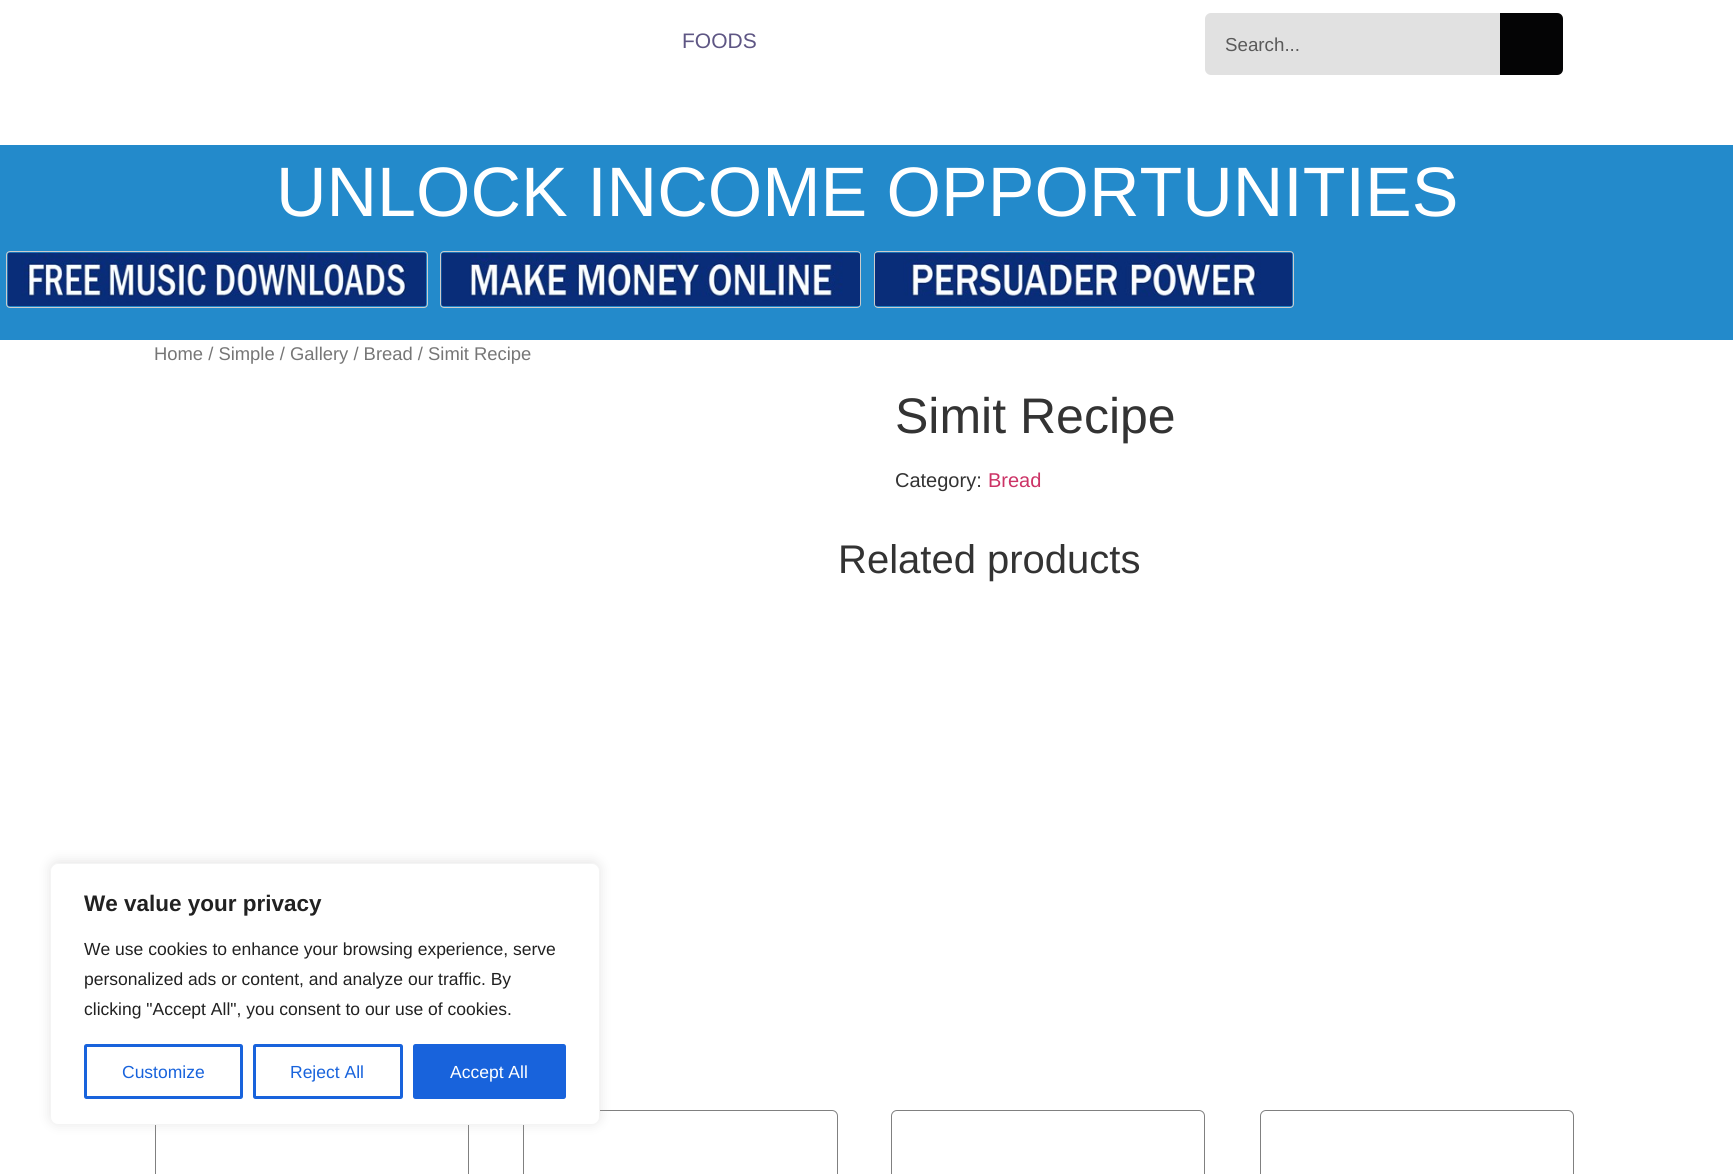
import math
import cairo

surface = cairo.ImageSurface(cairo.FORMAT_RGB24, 1733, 1174)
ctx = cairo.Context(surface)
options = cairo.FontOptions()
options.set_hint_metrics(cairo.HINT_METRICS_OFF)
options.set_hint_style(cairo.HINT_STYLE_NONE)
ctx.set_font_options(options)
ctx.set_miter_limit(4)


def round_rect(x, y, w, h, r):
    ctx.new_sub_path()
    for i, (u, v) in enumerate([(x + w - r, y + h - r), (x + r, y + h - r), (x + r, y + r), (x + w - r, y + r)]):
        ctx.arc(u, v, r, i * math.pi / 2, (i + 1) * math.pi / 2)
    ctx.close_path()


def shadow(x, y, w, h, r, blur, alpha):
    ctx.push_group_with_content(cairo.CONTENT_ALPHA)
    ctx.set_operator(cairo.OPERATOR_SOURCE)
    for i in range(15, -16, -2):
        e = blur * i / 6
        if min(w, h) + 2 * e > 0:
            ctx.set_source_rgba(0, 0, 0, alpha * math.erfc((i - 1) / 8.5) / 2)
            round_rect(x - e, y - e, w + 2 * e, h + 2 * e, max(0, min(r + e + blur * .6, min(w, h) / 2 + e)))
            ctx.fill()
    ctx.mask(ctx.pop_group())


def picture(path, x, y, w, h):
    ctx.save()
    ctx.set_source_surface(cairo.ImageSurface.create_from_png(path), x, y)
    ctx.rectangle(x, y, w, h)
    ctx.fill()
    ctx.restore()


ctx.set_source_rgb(1, 1, 1)
ctx.paint()
ctx.select_font_face("Liberation Sans")
ctx.set_font_size(21)
ctx.set_source_rgb(0.369, 0.337, 0.518)
ctx.move_to(682, 48)
ctx.show_text("FOODS")
ctx.set_source_rgb(0.882, 0.882, 0.882)
round_rect(1205, 13, 358, 62, 6)
ctx.fill()
ctx.set_font_size(18.75)
ctx.set_source_rgb(0.353, 0.353, 0.353)
ctx.move_to(1225, 51)
ctx.show_text("Search...")
ctx.set_source_rgb(0.016, 0.016, 0.02)
ctx.new_path()
ctx.move_to(1500, 13)
ctx.line_to(1557, 13)
ctx.curve_to(1560.5, 13, 1563, 15.5, 1563, 19)
ctx.line_to(1563, 69)
ctx.curve_to(1563, 72.5, 1560.5, 75, 1557, 75)
ctx.line_to(1500, 75)
ctx.close_path()
ctx.fill()
ctx.set_source_rgb(0.137, 0.541, 0.796)
ctx.rectangle(0, 145, 1733, 195)
ctx.fill()
ctx.set_font_size(70)
ctx.set_source_rgb(1, 1, 1)
ctx.move_to(276, 216)
ctx.show_text("UNLOCK INCOME OPPORTUNITIES")
round_rect(6.5, 251.5, 421, 56, 3.5)
ctx.set_source_rgb(0.8, 0.8, 0.8)
ctx.set_line_width(1)
ctx.stroke()
picture("img1.png", 7, 252, 420, 55)
round_rect(440.5, 251.5, 420, 56, 3.5)
ctx.stroke()
picture("img2.png", 441, 252, 419, 55)
round_rect(874.5, 251.5, 419, 56, 3.5)
ctx.stroke()
picture("img3.png", 875, 252, 418, 55)
ctx.set_font_size(18.4)
ctx.set_source_rgb(0.463, 0.463, 0.463)
ctx.move_to(154, 360)
ctx.show_text("Home / Simple / Gallery / Bread / Simit Recipe")
ctx.set_font_size(50)
ctx.set_source_rgb(0.2, 0.2, 0.2)
ctx.move_to(895, 433)
ctx.show_text("Simit Recipe")
ctx.set_font_size(20)
ctx.move_to(895, 487)
ctx.show_text("Category:")
ctx.set_source_rgb(0.8, 0.2, 0.4)
ctx.move_to(988, 487)
ctx.show_text("Bread")
ctx.set_font_size(40)
ctx.set_source_rgb(0.2, 0.2, 0.2)
ctx.move_to(838, 573)
ctx.show_text("Related products")
ctx.rectangle(155.5, 1110.5, 313, 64)
ctx.set_source_rgb(0.502, 0.502, 0.502)
ctx.stroke()
round_rect(523.5, 1110.5, 314, 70, 5.5)
ctx.stroke()
round_rect(891.5, 1110.5, 313, 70, 5.5)
ctx.stroke()
round_rect(1260.5, 1110.5, 313, 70, 5.5)
ctx.stroke()
ctx.set_source_rgb(0.675, 0.671, 0.671)
shadow(50, 861, 550, 263, 8, 6, 0.3)
ctx.set_source_rgb(1, 1, 1)
round_rect(50.5, 863.5, 549, 261, 7.5)
ctx.fill_preserve()
ctx.set_source_rgb(0.957, 0.957, 0.957)
ctx.stroke()
ctx.select_font_face("Liberation Sans", cairo.FONT_SLANT_NORMAL, cairo.FONT_WEIGHT_BOLD)
ctx.set_font_size(22.5)
ctx.set_source_rgb(0.129, 0.129, 0.129)
ctx.move_to(84, 911)
ctx.show_text("We value your privacy")
ctx.select_font_face("Liberation Sans")
ctx.set_font_size(17.5)
ctx.move_to(84, 955)
ctx.show_text("We use cookies to enhance your browsing experience, serve")
ctx.move_to(84, 985)
ctx.show_text("personalized ads or content, and analyze our traffic. By")
ctx.move_to(84, 1015)
ctx.show_text("clicking \"Accept All\", you consent to our use of cookies.")
round_rect(85.5, 1045.5, 156, 52, 1)
ctx.set_source_rgb(0.094, 0.388, 0.863)
ctx.set_line_width(3)
ctx.stroke()
ctx.move_to(122, 1078)
ctx.show_text("Customize")
round_rect(254.5, 1045.5, 147, 52, 1)
ctx.stroke()
ctx.move_to(290, 1078)
ctx.show_text("Reject All")
round_rect(414.5, 1045.5, 150, 52, 1)
ctx.fill_preserve()
ctx.stroke()
ctx.set_source_rgb(1, 1, 1)
ctx.move_to(450, 1078)
ctx.show_text("Accept All")
surface.write_to_png("page.png")
